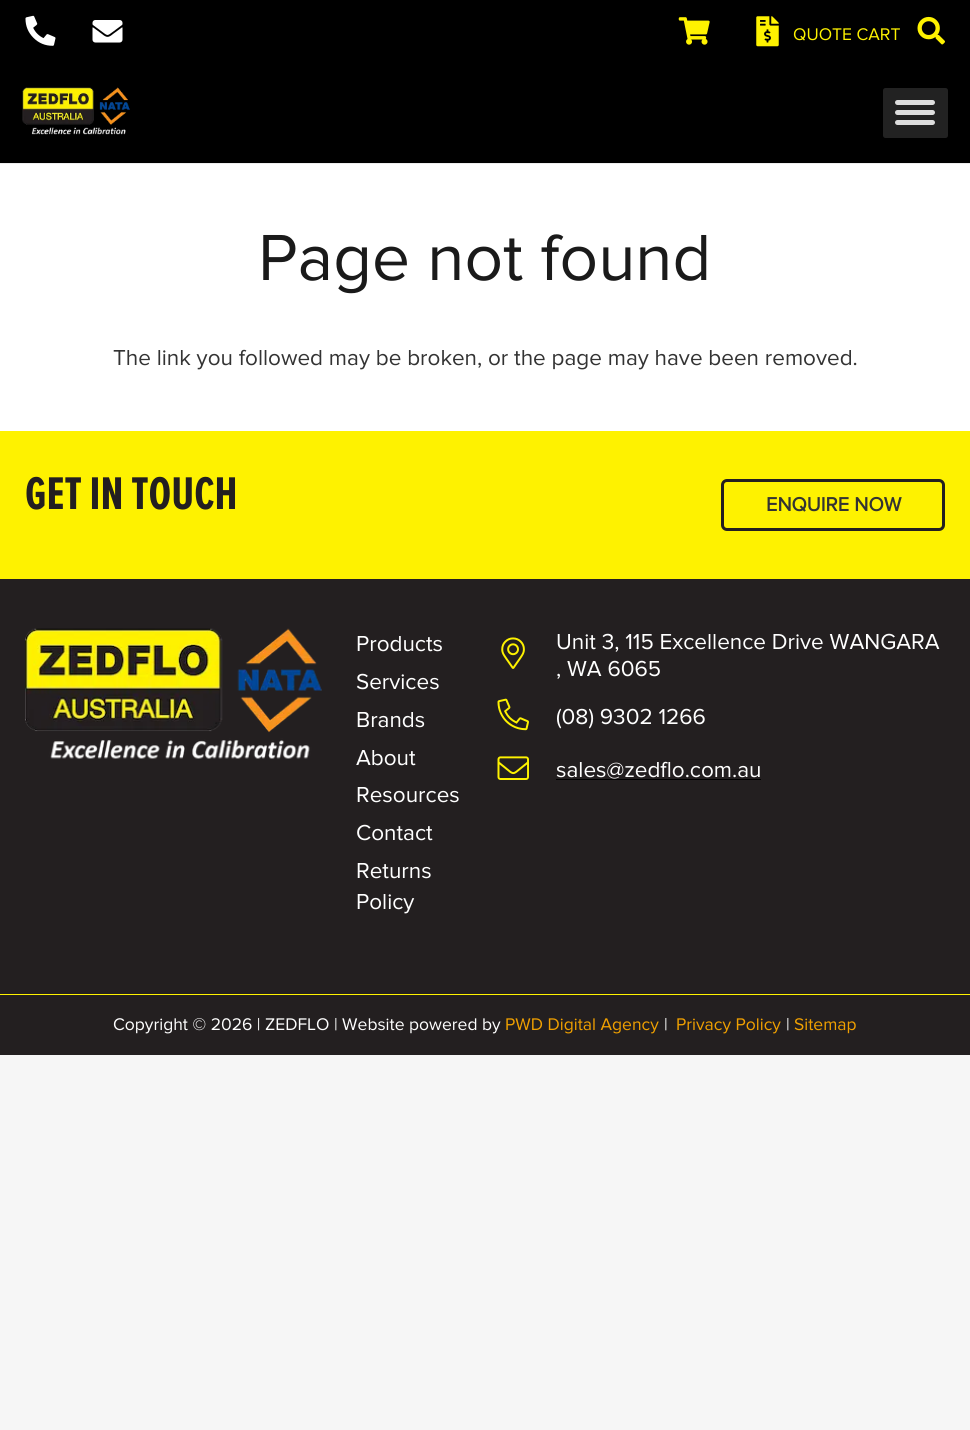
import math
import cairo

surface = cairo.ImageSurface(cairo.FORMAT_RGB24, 970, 1430)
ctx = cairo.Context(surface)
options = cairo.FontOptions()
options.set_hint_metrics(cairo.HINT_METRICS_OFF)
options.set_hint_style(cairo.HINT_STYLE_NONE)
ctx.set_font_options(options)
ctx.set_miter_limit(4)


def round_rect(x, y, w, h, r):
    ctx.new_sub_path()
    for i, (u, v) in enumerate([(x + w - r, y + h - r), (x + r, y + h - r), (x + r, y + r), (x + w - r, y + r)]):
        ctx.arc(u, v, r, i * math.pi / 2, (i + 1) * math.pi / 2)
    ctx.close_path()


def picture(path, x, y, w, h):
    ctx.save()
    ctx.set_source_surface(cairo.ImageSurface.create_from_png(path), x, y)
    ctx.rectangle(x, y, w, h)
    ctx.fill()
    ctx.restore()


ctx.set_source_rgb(0.961, 0.961, 0.961)
ctx.paint()
ctx.set_source_rgb(1, 1, 1)
ctx.rectangle(0, 164, 970, 267)
ctx.fill()
ctx.set_source_rgb(0, 0, 0)
ctx.rectangle(0, 0, 970, 163)
ctx.fill()
picture("img1.png", 25, 15, 31, 31)
picture("img2.png", 92, 20, 31, 23)
picture("img3.png", 678, 17, 32, 28)
picture("img4.png", 756, 16, 23, 31)
ctx.select_font_face("Proxima Nova")
ctx.set_font_size(17.5)
ctx.set_source_rgb(0.996, 0.949, 0)
ctx.move_to(793, 40)
ctx.show_text("QUOTE CART")
picture("img5.png", 917, 16, 28, 29)
ctx.set_source_rgb(0.922, 0.922, 0.922)
ctx.rectangle(0, 163, 970, 1)
ctx.fill()
picture("img6.png", 22, 87, 108, 48)
ctx.set_source_rgb(0.133, 0.133, 0.133)
round_rect(883, 88, 65, 50, 2.5)
ctx.fill()
ctx.set_source_rgb(0.867, 0.867, 0.867)
round_rect(895, 100, 40, 5, 2.5)
ctx.fill()
round_rect(895, 110, 40, 5, 2.5)
ctx.fill()
round_rect(895, 120, 40, 5, 2.5)
ctx.fill()
ctx.set_font_size(67.5)
ctx.set_source_rgb(0.102, 0.102, 0.102)
ctx.move_to(258, 280)
ctx.show_text("Page not found")
ctx.set_font_size(22.5)
ctx.set_source_rgb(0.2, 0.2, 0.2)
ctx.move_to(113, 365)
ctx.show_text("The link you followed may be broken, or the page may have been removed.")
ctx.set_source_rgb(0.996, 0.949, 0)
ctx.rectangle(0, 431, 970, 148)
ctx.fill()
ctx.select_font_face("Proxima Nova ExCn", cairo.FONT_SLANT_NORMAL, cairo.FONT_WEIGHT_BOLD)
ctx.set_font_size(47.5)
ctx.set_source_rgb(0.137, 0.122, 0.125)
ctx.move_to(25, 509)
ctx.show_text("GET IN TOUCH")
round_rect(722.5, 480.5, 221, 49, 4.5)
ctx.set_line_width(3)
ctx.stroke()
ctx.select_font_face("Proxima Nova", cairo.FONT_SLANT_NORMAL, cairo.FONT_WEIGHT_BOLD)
ctx.set_font_size(20)
ctx.set_source_rgb(0.2, 0.2, 0.2)
ctx.move_to(766, 511)
ctx.show_text("ENQUIRE NOW")
ctx.set_source_rgb(0.137, 0.122, 0.125)
ctx.rectangle(0, 579, 970, 415)
ctx.fill()
picture("img7.png", 25, 628, 297, 131)
ctx.select_font_face("Proxima Nova")
ctx.set_font_size(22.5)
ctx.set_source_rgb(1, 1, 1)
ctx.move_to(356, 651)
ctx.show_text("Products")
ctx.move_to(356, 689)
ctx.show_text("Services")
ctx.move_to(356, 727)
ctx.show_text("Brands")
ctx.move_to(356, 765)
ctx.show_text("About")
ctx.move_to(356, 802)
ctx.show_text("Resources")
ctx.move_to(356, 840)
ctx.show_text("Contact")
ctx.move_to(356, 878)
ctx.show_text("Returns")
ctx.move_to(356, 909)
ctx.show_text("Policy")
picture("img8.png", 501, 637, 24, 32)
ctx.move_to(556, 649)
ctx.show_text("Unit 3, 115 Excellence Drive WANGARA")
ctx.move_to(556, 676)
ctx.show_text(", WA 6065")
picture("img9.png", 497, 698, 32, 33)
ctx.move_to(556, 724)
ctx.show_text("(08) 9302 1266")
picture("img10.png", 497, 756, 32, 24)
ctx.move_to(556, 777)
ctx.show_text("sales@zedflo.com.au")
ctx.set_source_rgb(0, 0, 0)
ctx.rectangle(556, 779, 205, 1)
ctx.fill()
ctx.set_source_rgb(0.137, 0.122, 0.125)
ctx.rectangle(0, 995, 970, 60)
ctx.fill()
ctx.set_source_rgb(0.996, 0.949, 0)
ctx.rectangle(0, 994, 970, 1)
ctx.fill()
ctx.set_font_size(17.5)
ctx.set_source_rgb(1, 1, 1)
ctx.move_to(113, 1030)
ctx.show_text("Copyright © 2026 | ZEDFLO | Website powered by")
ctx.set_source_rgb(0.941, 0.627, 0)
ctx.move_to(505, 1030)
ctx.show_text("PWD Digital Agency")
ctx.set_source_rgb(1, 1, 1)
ctx.move_to(664, 1030)
ctx.show_text("|")
ctx.set_source_rgb(0.941, 0.627, 0)
ctx.move_to(676, 1030)
ctx.show_text("Privacy Policy")
ctx.set_source_rgb(1, 1, 1)
ctx.move_to(786, 1030)
ctx.show_text("|")
ctx.set_source_rgb(0.941, 0.627, 0)
ctx.move_to(794, 1030)
ctx.show_text("Sitemap")
surface.write_to_png("page.png")
